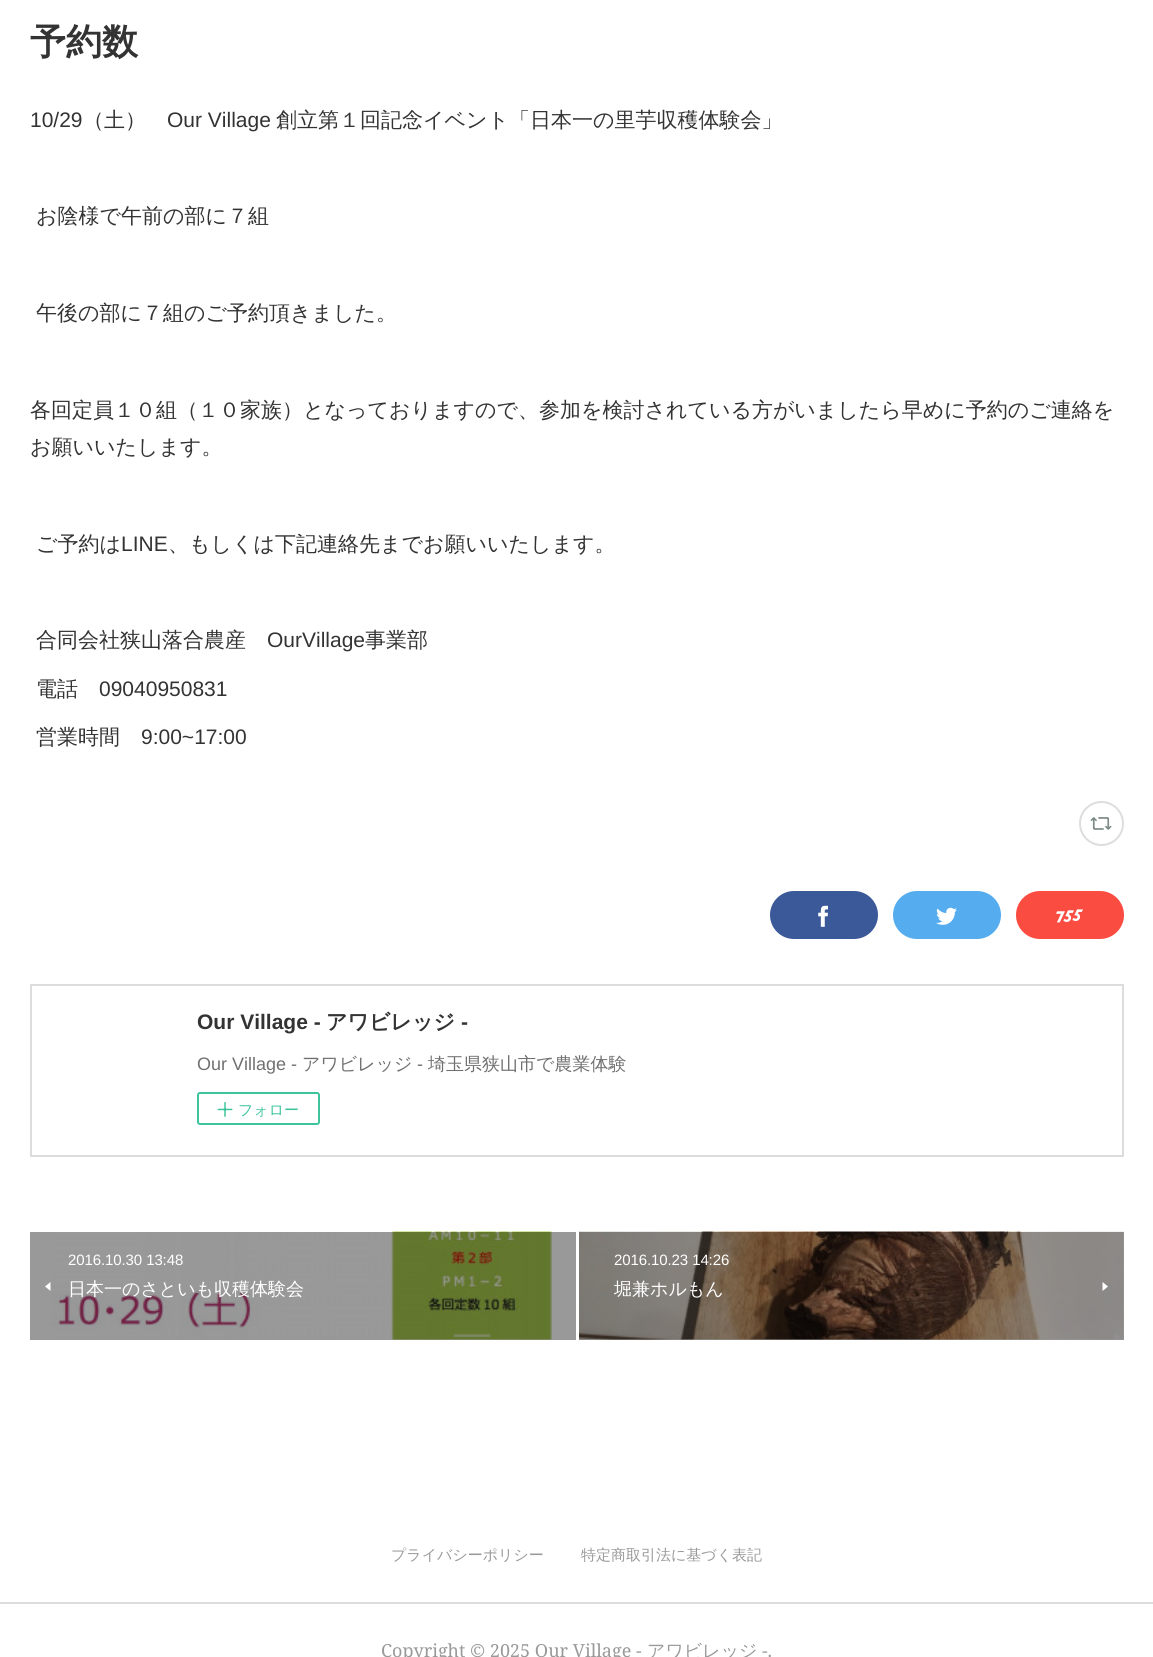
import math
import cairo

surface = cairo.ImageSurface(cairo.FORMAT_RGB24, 1153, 1657)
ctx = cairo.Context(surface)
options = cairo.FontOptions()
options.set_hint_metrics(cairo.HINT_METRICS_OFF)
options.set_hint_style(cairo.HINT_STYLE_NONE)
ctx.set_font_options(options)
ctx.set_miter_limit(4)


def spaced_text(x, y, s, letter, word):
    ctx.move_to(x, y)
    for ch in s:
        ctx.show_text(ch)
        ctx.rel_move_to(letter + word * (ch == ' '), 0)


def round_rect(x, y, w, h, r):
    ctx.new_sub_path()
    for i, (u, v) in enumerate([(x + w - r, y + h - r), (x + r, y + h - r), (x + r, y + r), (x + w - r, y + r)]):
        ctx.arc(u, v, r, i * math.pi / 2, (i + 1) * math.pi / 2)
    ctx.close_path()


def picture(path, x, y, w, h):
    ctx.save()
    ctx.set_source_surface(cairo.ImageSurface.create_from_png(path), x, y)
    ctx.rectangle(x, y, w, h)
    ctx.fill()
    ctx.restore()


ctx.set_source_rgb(1, 1, 1)
ctx.paint()
ctx.set_source_rgb(0.6, 0.6, 0.6)
ctx.rectangle(579, 1232, 545, 108)
ctx.fill()
ctx.rectangle(30, 1232, 546, 108)
ctx.fill()
ctx.select_font_face("WenQuanYi Zen Hei", cairo.FONT_SLANT_NORMAL, cairo.FONT_WEIGHT_BOLD)
ctx.set_font_size(36)
ctx.set_source_rgb(0.2, 0.2, 0.2)
ctx.move_to(30, 54)
ctx.show_text("予約数")
ctx.select_font_face("Liberation Sans")
ctx.set_font_size(21)
ctx.move_to(30, 127)
ctx.show_text("10/29")
ctx.select_font_face("WenQuanYi Zen Hei Medium")
ctx.move_to(83, 127)
ctx.show_text("（土）")
ctx.select_font_face("Liberation Sans")
ctx.move_to(167, 127)
ctx.show_text("Our Village")
ctx.select_font_face("WenQuanYi Zen Hei Medium")
ctx.move_to(276, 127)
ctx.show_text("創立第１回記念イベント「日本一の里芋収穫体験会」")
ctx.move_to(36, 223)
ctx.show_text("お陰様で午前の部に７組")
ctx.move_to(36, 320)
ctx.show_text("午後の部に７組のご予約頂きました。")
ctx.move_to(30, 417)
ctx.show_text("各回定員１０組（１０家族）となっておりますので、参加を検討されている方がいましたら早めに予約のご連絡を")
ctx.move_to(30, 454)
ctx.show_text("お願いいたします。")
ctx.move_to(36, 551)
ctx.show_text("ご予約は")
ctx.select_font_face("Liberation Sans")
ctx.move_to(121, 551)
ctx.show_text("LINE")
ctx.select_font_face("WenQuanYi Zen Hei Medium")
ctx.move_to(168, 551)
ctx.show_text("、もしくは下記連絡先までお願いいたします。")
ctx.move_to(36, 647)
ctx.show_text("合同会社狭山落合農産")
ctx.select_font_face("Liberation Sans")
ctx.move_to(267, 647)
ctx.show_text("OurVillage")
ctx.select_font_face("WenQuanYi Zen Hei Medium")
ctx.move_to(365, 647)
ctx.show_text("事業部")
ctx.move_to(36, 696)
ctx.show_text("電話")
ctx.select_font_face("Liberation Sans")
ctx.move_to(99, 696)
ctx.show_text("09040950831")
ctx.select_font_face("WenQuanYi Zen Hei Medium")
ctx.move_to(36, 744)
ctx.show_text("営業時間")
ctx.select_font_face("Liberation Sans")
ctx.move_to(141, 744)
ctx.show_text("9:00~17:00")
ctx.new_path()
ctx.arc(1101.5, 823.5, 21.5, 0, 2 * math.pi)
ctx.set_source_rgb(0.867, 0.867, 0.867)
ctx.stroke()
picture("img1.png", 1090, 817, 22, 13)
ctx.set_source_rgb(0.231, 0.349, 0.596)
round_rect(770, 891, 108, 48, 24)
ctx.fill()
picture("img2.png", 818, 905, 10, 22)
ctx.set_source_rgb(0.333, 0.675, 0.933)
round_rect(893, 891, 108, 48, 24)
ctx.fill()
picture("img3.png", 936, 907, 21, 18)
ctx.set_source_rgb(0.984, 0.298, 0.259)
round_rect(1016, 891, 108, 48, 24)
ctx.fill()
picture("img4.png", 1056, 909, 27, 14)
ctx.rectangle(31, 985, 1092, 171)
ctx.set_source_rgb(0.863, 0.863, 0.863)
ctx.stroke()
ctx.select_font_face("Liberation Sans", cairo.FONT_SLANT_NORMAL, cairo.FONT_WEIGHT_BOLD)
ctx.set_source_rgb(0.2, 0.2, 0.2)
ctx.move_to(197, 1029)
ctx.show_text("Our Village -")
ctx.select_font_face("WenQuanYi Zen Hei", cairo.FONT_SLANT_NORMAL, cairo.FONT_WEIGHT_BOLD)
ctx.move_to(326, 1029)
ctx.show_text("アワビレッジ")
ctx.select_font_face("Liberation Sans", cairo.FONT_SLANT_NORMAL, cairo.FONT_WEIGHT_BOLD)
ctx.move_to(461, 1029)
ctx.show_text("-")
ctx.select_font_face("Liberation Sans")
ctx.set_font_size(18)
ctx.set_source_rgb(0.439, 0.439, 0.439)
ctx.move_to(197, 1070)
ctx.show_text("Our Village -")
ctx.select_font_face("WenQuanYi Zen Hei Medium")
ctx.move_to(302, 1070)
ctx.show_text("アワビレッジ")
ctx.select_font_face("Liberation Sans")
ctx.move_to(417, 1070)
ctx.show_text("-")
ctx.select_font_face("WenQuanYi Zen Hei Medium")
ctx.move_to(428, 1070)
ctx.show_text("埼玉県狭山市で農業体験")
round_rect(198, 1093, 121, 31, 2)
ctx.set_source_rgb(0.239, 0.769, 0.616)
ctx.stroke()
picture("img5.png", 217, 1102, 16, 15)
ctx.set_font_size(15)
ctx.move_to(238, 1115)
ctx.show_text("フォロー")
picture("img6.png", 51, 1231, 502, 109)
ctx.select_font_face("Liberation Sans")
ctx.set_source_rgb(1, 1, 1)
spaced_text(68, 1265, "2016.10.30 13:48", -0.1, 0)
ctx.new_path()
ctx.move_to(50.5, 1291)
ctx.line_to(50.5, 1282)
ctx.line_to(45, 1286.5)
ctx.close_path()
ctx.fill()
ctx.select_font_face("WenQuanYi Zen Hei Medium")
ctx.set_font_size(18)
ctx.move_to(68, 1295)
ctx.show_text("日本一のさといも収穫体験会")
picture("img7.png", 579, 1231, 545, 109)
ctx.select_font_face("Liberation Sans")
ctx.set_font_size(15)
spaced_text(614, 1265, "2016.10.23 14:26", -0.1, 0)
ctx.select_font_face("WenQuanYi Zen Hei Medium")
ctx.set_font_size(18)
ctx.move_to(614, 1295)
ctx.show_text("堀兼ホルもん")
ctx.new_path()
ctx.move_to(1102.5, 1282)
ctx.line_to(1102.5, 1291)
ctx.line_to(1108, 1286.5)
ctx.close_path()
ctx.fill()
ctx.set_font_size(15)
ctx.set_source_rgb(0.6, 0.6, 0.6)
ctx.move_to(391, 1560)
ctx.show_text("プライバシーポリシー")
ctx.move_to(581, 1560)
ctx.show_text("特定商取引法に基づく表記")
ctx.set_source_rgb(0.863, 0.863, 0.863)
ctx.rectangle(0, 1602, 1153, 2)
ctx.fill()
ctx.select_font_face("Noto Serif")
ctx.set_font_size(18)
ctx.set_source_rgb(0.6, 0.6, 0.6)
ctx.move_to(381, 1657)
ctx.show_text("Copyright © 2025 Our Village -")
ctx.select_font_face("WenQuanYi Zen Hei Medium")
ctx.move_to(647, 1657)
ctx.show_text("アワビレッジ")
ctx.select_font_face("Noto Serif")
ctx.move_to(762, 1657)
ctx.show_text("-.")
surface.write_to_png("page.png")
